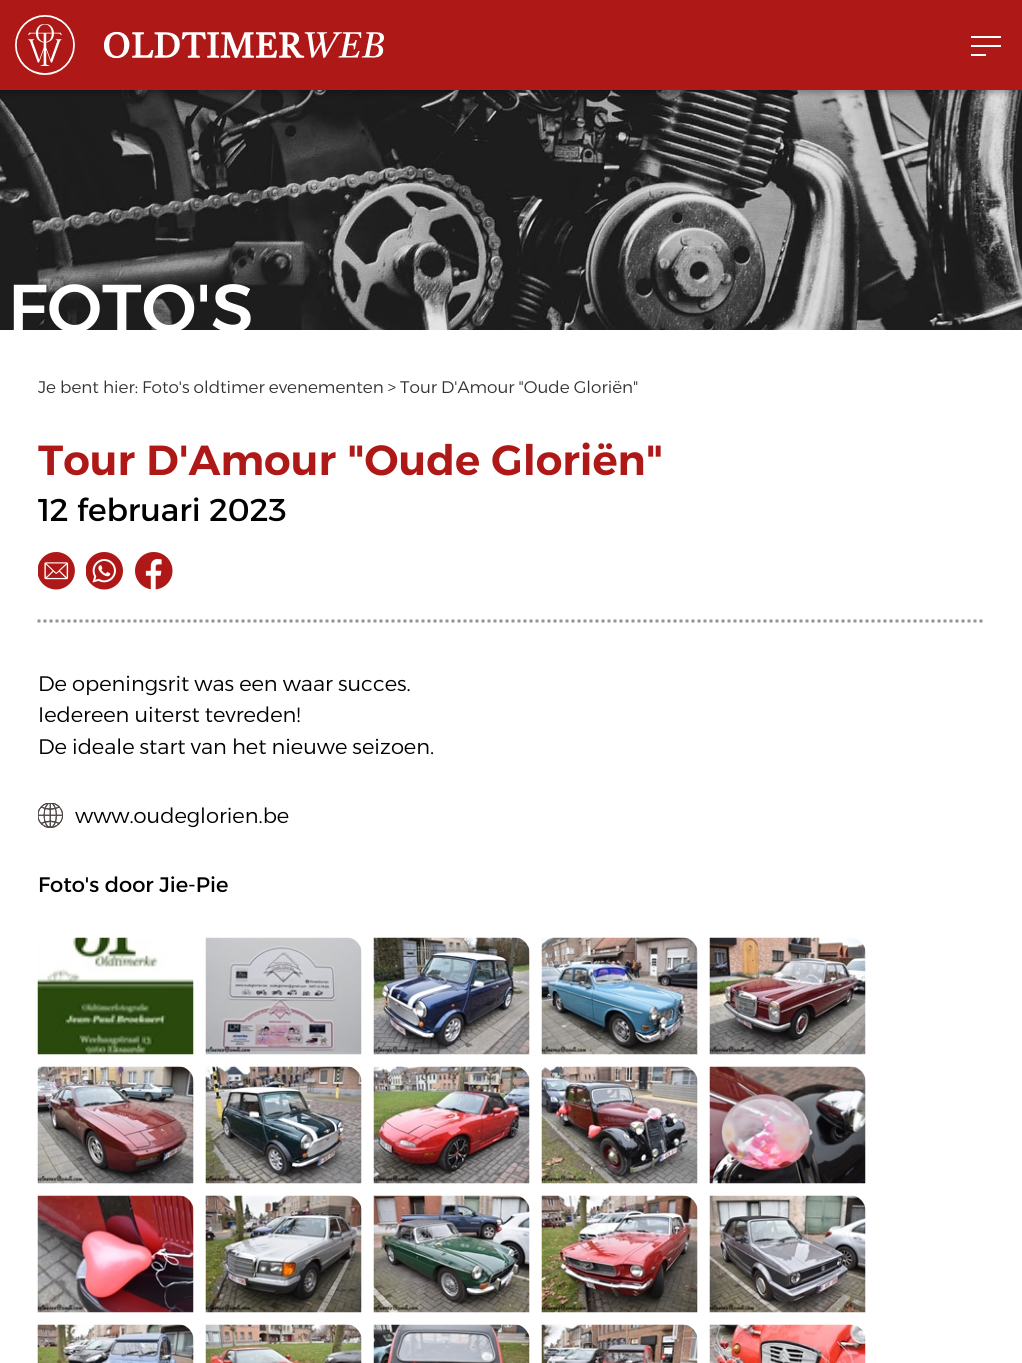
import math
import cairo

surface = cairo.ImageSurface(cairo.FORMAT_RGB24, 1022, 1363)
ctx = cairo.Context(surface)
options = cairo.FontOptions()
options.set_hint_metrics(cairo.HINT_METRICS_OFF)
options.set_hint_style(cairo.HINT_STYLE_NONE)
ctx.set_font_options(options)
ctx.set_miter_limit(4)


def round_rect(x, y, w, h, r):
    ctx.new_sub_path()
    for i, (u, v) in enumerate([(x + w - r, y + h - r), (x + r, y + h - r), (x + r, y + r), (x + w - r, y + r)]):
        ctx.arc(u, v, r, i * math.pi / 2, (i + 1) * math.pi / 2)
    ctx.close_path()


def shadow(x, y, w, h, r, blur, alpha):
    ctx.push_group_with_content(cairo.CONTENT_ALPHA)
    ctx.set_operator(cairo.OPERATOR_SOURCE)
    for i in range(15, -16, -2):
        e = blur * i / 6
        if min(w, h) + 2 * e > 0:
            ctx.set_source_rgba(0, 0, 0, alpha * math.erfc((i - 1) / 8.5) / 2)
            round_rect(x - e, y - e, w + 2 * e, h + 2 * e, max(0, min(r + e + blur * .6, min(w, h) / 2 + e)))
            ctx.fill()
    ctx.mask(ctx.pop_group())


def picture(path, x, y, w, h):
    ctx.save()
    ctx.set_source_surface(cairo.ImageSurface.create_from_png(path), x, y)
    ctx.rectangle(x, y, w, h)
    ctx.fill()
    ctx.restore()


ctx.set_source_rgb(1, 1, 1)
ctx.paint()
picture("img2.png", 0, 90, 1022, 240)
ctx.set_source_rgb(0, 0, 0)
shadow(0, 3, 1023, 90, 0, 3, 0.3)
ctx.set_source_rgb(0.682, 0.098, 0.09)
ctx.rectangle(0, 0, 1022, 90)
ctx.fill()
picture("img1.png", 15, 15, 369, 60)
ctx.set_source_rgb(1, 1, 1)
ctx.rectangle(971, 36, 30, 2)
ctx.fill()
ctx.rectangle(971, 45, 30, 2)
ctx.fill()
ctx.rectangle(971, 54, 15, 2)
ctx.fill()
ctx.select_font_face("Alexandria Medium")
ctx.set_font_size(67.5)
ctx.move_to(8, 332)
ctx.show_text("FOTO'S")
ctx.select_font_face("Alexandria Light")
ctx.set_font_size(16.8)
ctx.set_source_rgb(0.2, 0.2, 0.2)
ctx.move_to(38, 393)
ctx.show_text("Je bent hier: Foto's oldtimer evenementen > Tour D'Amour \"Oude Gloriën\"")
ctx.new_path()
ctx.move_to(37.5, 621)
ctx.line_to(985.5, 621)
ctx.set_source_rgb(0.588, 0.576, 0.576)
ctx.set_line_width(3)
ctx.set_dash([3, 3])
ctx.stroke()
ctx.select_font_face("Alexandria SemiBold")
ctx.set_font_size(42)
ctx.set_source_rgb(0.682, 0.098, 0.09)
ctx.move_to(38, 475)
ctx.show_text("Tour D'Amour \"Oude Gloriën\"")
ctx.select_font_face("Alexandria")
ctx.set_font_size(31.5)
ctx.set_source_rgb(0, 0, 0)
ctx.move_to(38, 521)
ctx.show_text("12 februari 2023")
picture("img3.png", 38, 552, 37, 38)
picture("img4.png", 86, 552, 37, 38)
picture("img5.png", 135, 552, 38, 38)
ctx.select_font_face("Alexandria Light")
ctx.set_font_size(21)
ctx.move_to(38, 691)
ctx.show_text("De openingsrit was een waar succes.")
ctx.move_to(38, 722)
ctx.show_text("Iedereen uiterst tevreden!")
ctx.move_to(38, 754)
ctx.show_text("De ideale start van het nieuwe seizoen.")
picture("img6.png", 38, 803, 25, 25)
picture("img7.png", 38, 803, 25, 25)
ctx.move_to(75, 823)
ctx.show_text("www.oudeglorien.be")
ctx.select_font_face("Alexandria")
ctx.move_to(38, 892)
ctx.show_text("Foto's door Jie-Pie")
picture("img8.png", 37, 937, 157, 118)
picture("img9.png", 205, 937, 157, 118)
picture("img10.png", 373, 937, 157, 118)
picture("img11.png", 541, 937, 157, 118)
picture("img12.png", 709, 937, 157, 118)
picture("img13.png", 37, 1066, 157, 118)
picture("img14.png", 205, 1066, 157, 118)
picture("img15.png", 373, 1066, 157, 118)
picture("img16.png", 541, 1066, 157, 118)
picture("img17.png", 709, 1066, 157, 118)
picture("img18.png", 37, 1195, 157, 118)
picture("img19.png", 205, 1195, 157, 118)
picture("img20.png", 373, 1195, 157, 118)
picture("img21.png", 541, 1195, 157, 118)
picture("img22.png", 709, 1195, 157, 118)
picture("img23.png", 37, 1324, 157, 39)
picture("img24.png", 205, 1324, 157, 39)
picture("img25.png", 373, 1324, 157, 39)
picture("img26.png", 541, 1324, 157, 39)
picture("img27.png", 709, 1324, 157, 39)
surface.write_to_png("page.png")
